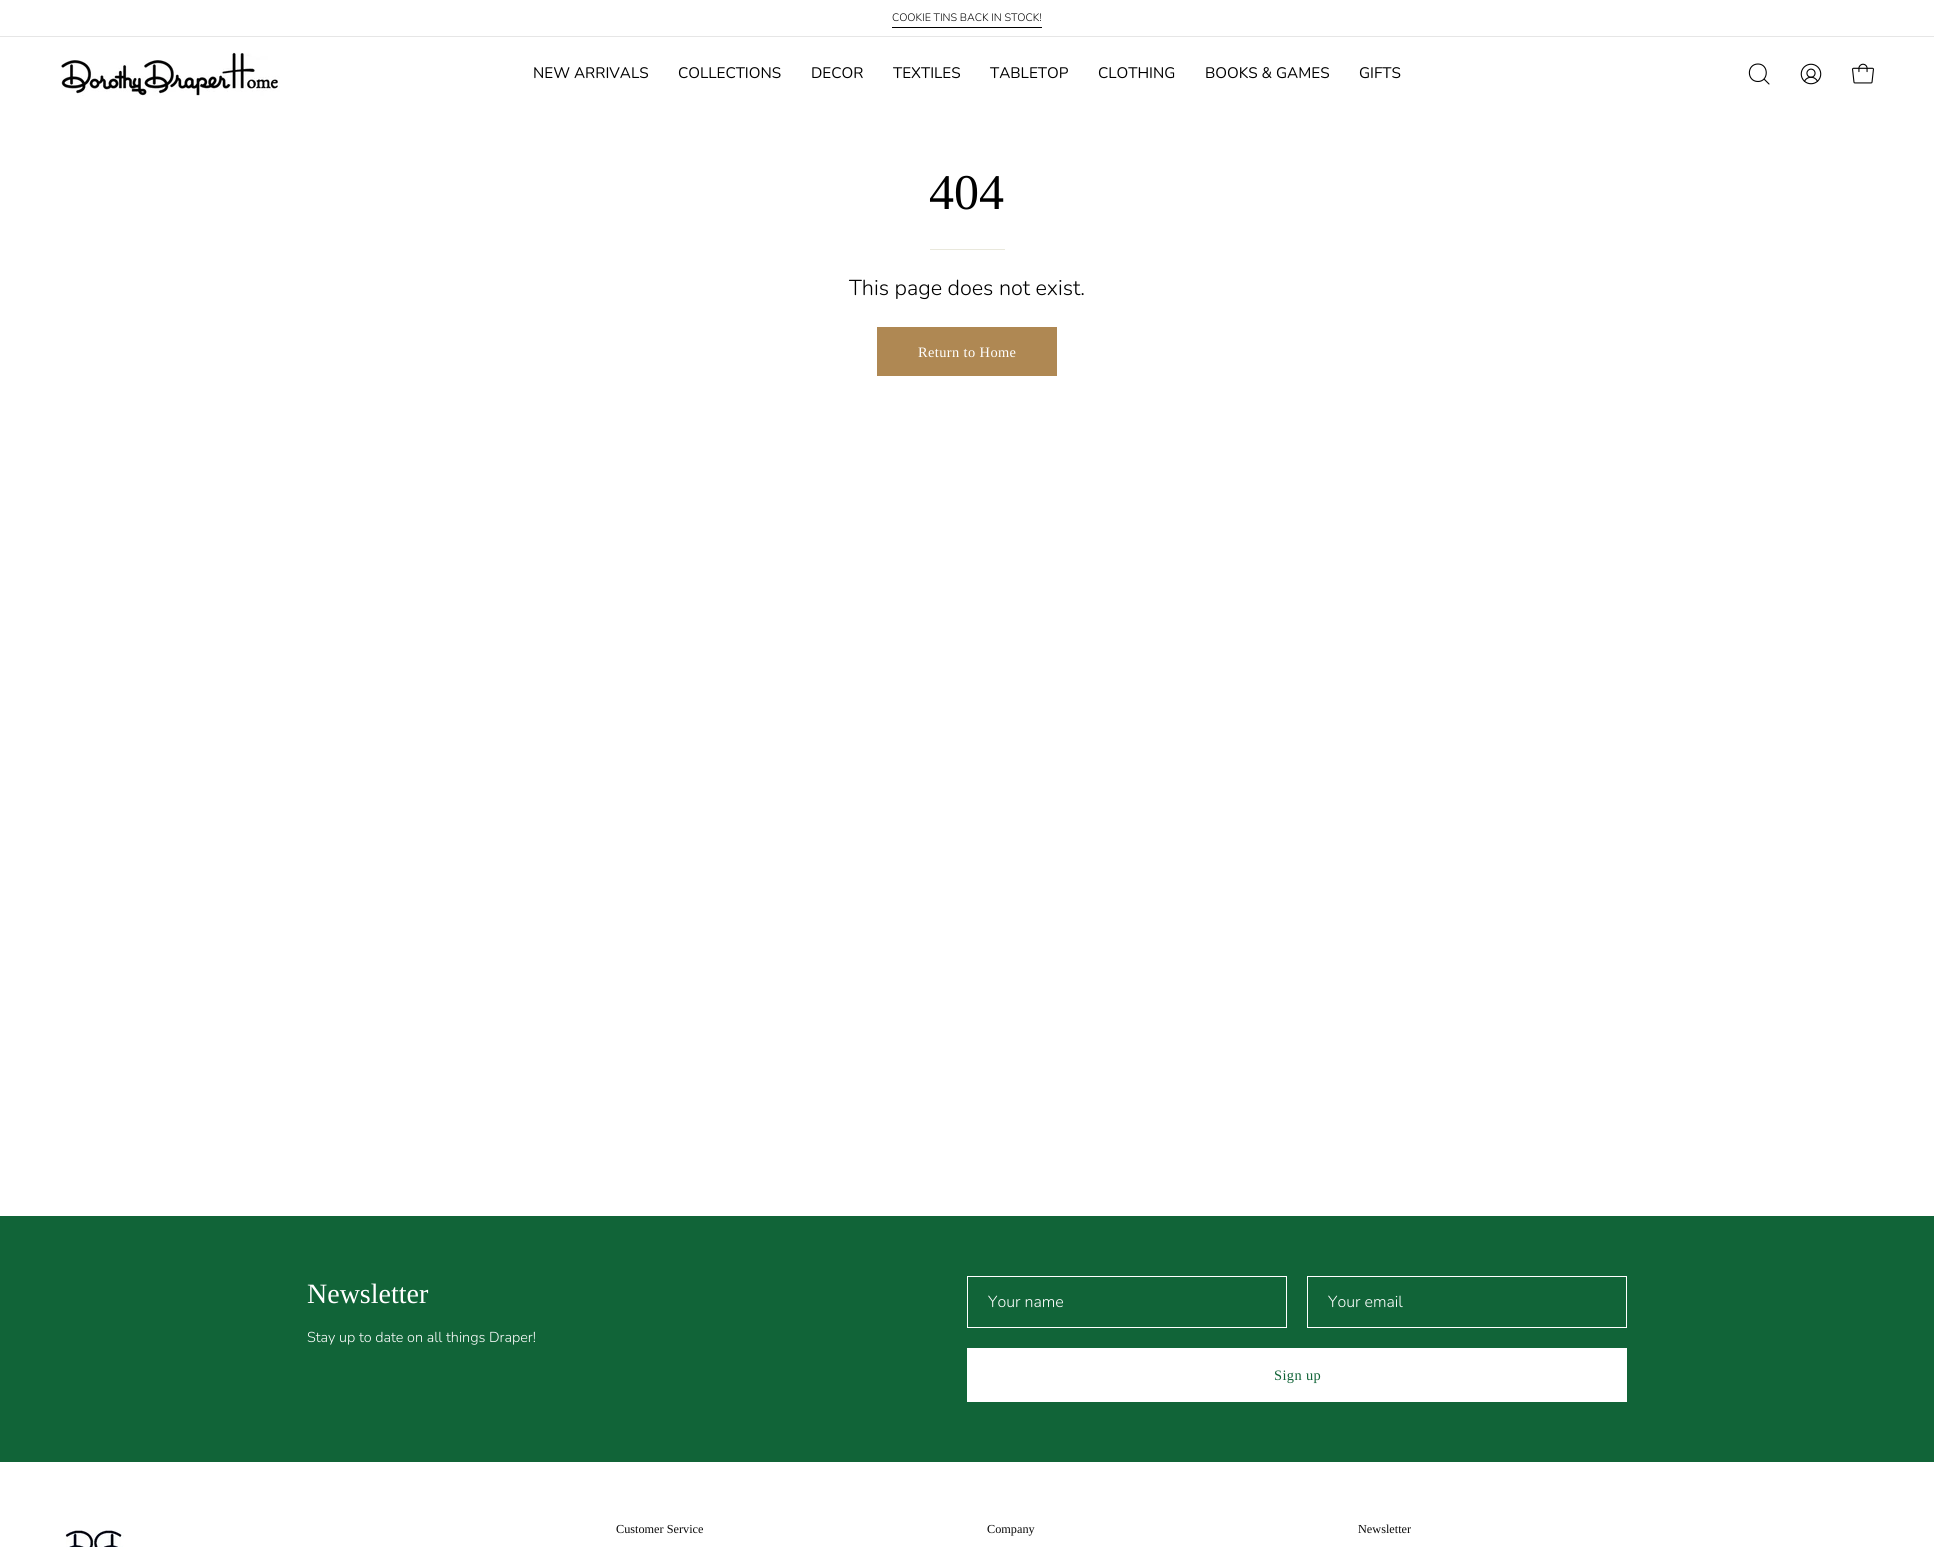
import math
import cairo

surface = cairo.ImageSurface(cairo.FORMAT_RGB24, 1934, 1547)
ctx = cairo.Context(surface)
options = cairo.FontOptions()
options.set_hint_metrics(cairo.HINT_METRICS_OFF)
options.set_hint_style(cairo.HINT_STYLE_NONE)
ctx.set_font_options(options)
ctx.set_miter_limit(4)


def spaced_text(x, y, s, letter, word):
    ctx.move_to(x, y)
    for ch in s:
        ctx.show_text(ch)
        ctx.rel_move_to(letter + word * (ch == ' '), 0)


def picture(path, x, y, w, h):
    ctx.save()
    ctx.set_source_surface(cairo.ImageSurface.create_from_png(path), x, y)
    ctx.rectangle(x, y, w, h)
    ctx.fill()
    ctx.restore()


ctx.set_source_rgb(1, 1, 1)
ctx.paint()
ctx.set_source_rgb(0.902, 0.902, 0.902)
ctx.rectangle(0, 36, 1934, 1)
ctx.fill()
ctx.select_font_face("Nunito Light")
ctx.set_font_size(10.75)
ctx.set_source_rgb(0, 0, 0)
ctx.move_to(892, 21)
ctx.show_text("COOKIE TINS BACK IN STOCK!")
ctx.rectangle(892, 27, 150, 1)
ctx.fill()
picture("img1.png", 61, 52, 219, 44)
ctx.select_font_face("Nunito")
ctx.set_font_size(15.25)
ctx.move_to(533, 78)
ctx.show_text("NEW ARRIVALS")
ctx.move_to(678, 78)
ctx.show_text("COLLECTIONS")
ctx.move_to(811, 78)
ctx.show_text("DECOR")
ctx.move_to(893, 78)
ctx.show_text("TEXTILES")
ctx.move_to(990, 78)
ctx.show_text("TABLETOP")
ctx.move_to(1098, 78)
ctx.show_text("CLOTHING")
ctx.move_to(1205, 78)
ctx.show_text("BOOKS & GAMES")
ctx.move_to(1359, 78)
ctx.show_text("GIFTS")
ctx.new_path()
ctx.move_to(1758, 81.5)
ctx.curve_to(1769, 81.5, 1769, 64, 1758, 64)
ctx.curve_to(1746.5, 64, 1746.5, 81.5, 1758, 81.5)
ctx.close_path()
ctx.move_to(1764, 79)
ctx.line_to(1769, 84)
ctx.set_line_width(1.1)
ctx.set_line_cap(cairo.LINE_CAP_ROUND)
ctx.set_line_join(cairo.LINE_JOIN_ROUND)
ctx.stroke()
picture("img2.png", 1800, 63, 22, 22)
picture("img3.png", 1852, 63, 22, 21)
ctx.select_font_face("Liberation Serif")
ctx.set_font_size(50)
ctx.move_to(929, 209)
ctx.show_text("404")
ctx.set_source_rgb(0.914, 0.91, 0.863)
ctx.rectangle(930, 249, 75, 1)
ctx.fill()
ctx.select_font_face("Nunito Light")
ctx.set_font_size(21.6)
ctx.set_source_rgb(0, 0, 0)
ctx.move_to(849, 295)
ctx.show_text("This page does not exist.")
ctx.set_source_rgb(0.686, 0.533, 0.325)
ctx.rectangle(877, 327, 180, 49)
ctx.fill()
ctx.select_font_face("Liberation Serif")
ctx.set_font_size(14.4)
ctx.set_source_rgb(1, 1, 1)
spaced_text(918, 357, "Return to Home", 0.4, 0)
ctx.set_source_rgb(0.067, 0.392, 0.22)
ctx.rectangle(0, 1216, 1934, 246)
ctx.fill()
ctx.set_font_size(28)
ctx.set_source_rgb(1, 1, 1)
ctx.move_to(307, 1303)
ctx.show_text("Newsletter")
ctx.select_font_face("Nunito Light")
ctx.set_font_size(14.4)
ctx.move_to(307, 1342)
ctx.show_text("Stay up to date on all things Draper!")
ctx.rectangle(967.5, 1276.5, 319, 51)
ctx.set_line_width(1)
ctx.set_line_cap(cairo.LINE_CAP_BUTT)
ctx.set_line_join(cairo.LINE_JOIN_MITER)
ctx.stroke()
ctx.set_font_size(16)
ctx.move_to(988, 1307)
ctx.show_text("Your name")
ctx.rectangle(1307.5, 1276.5, 319, 51)
ctx.stroke()
ctx.move_to(1328, 1307)
ctx.show_text("Your email")
ctx.rectangle(967, 1348, 660, 54)
ctx.fill()
ctx.select_font_face("Liberation Serif")
ctx.set_font_size(14.4)
ctx.set_source_rgb(0.067, 0.392, 0.22)
spaced_text(1274, 1380, "Sign up", 0.4, 0)
ctx.set_font_size(12.25)
ctx.set_source_rgb(0.043, 0.043, 0.043)
ctx.move_to(616, 1533)
ctx.show_text("Customer Service")
ctx.move_to(987, 1533)
ctx.show_text("Company")
ctx.move_to(1358, 1533)
ctx.show_text("Newsletter")
picture("img4.png", 65, 1530, 59, 17)
surface.write_to_png("page.png")
